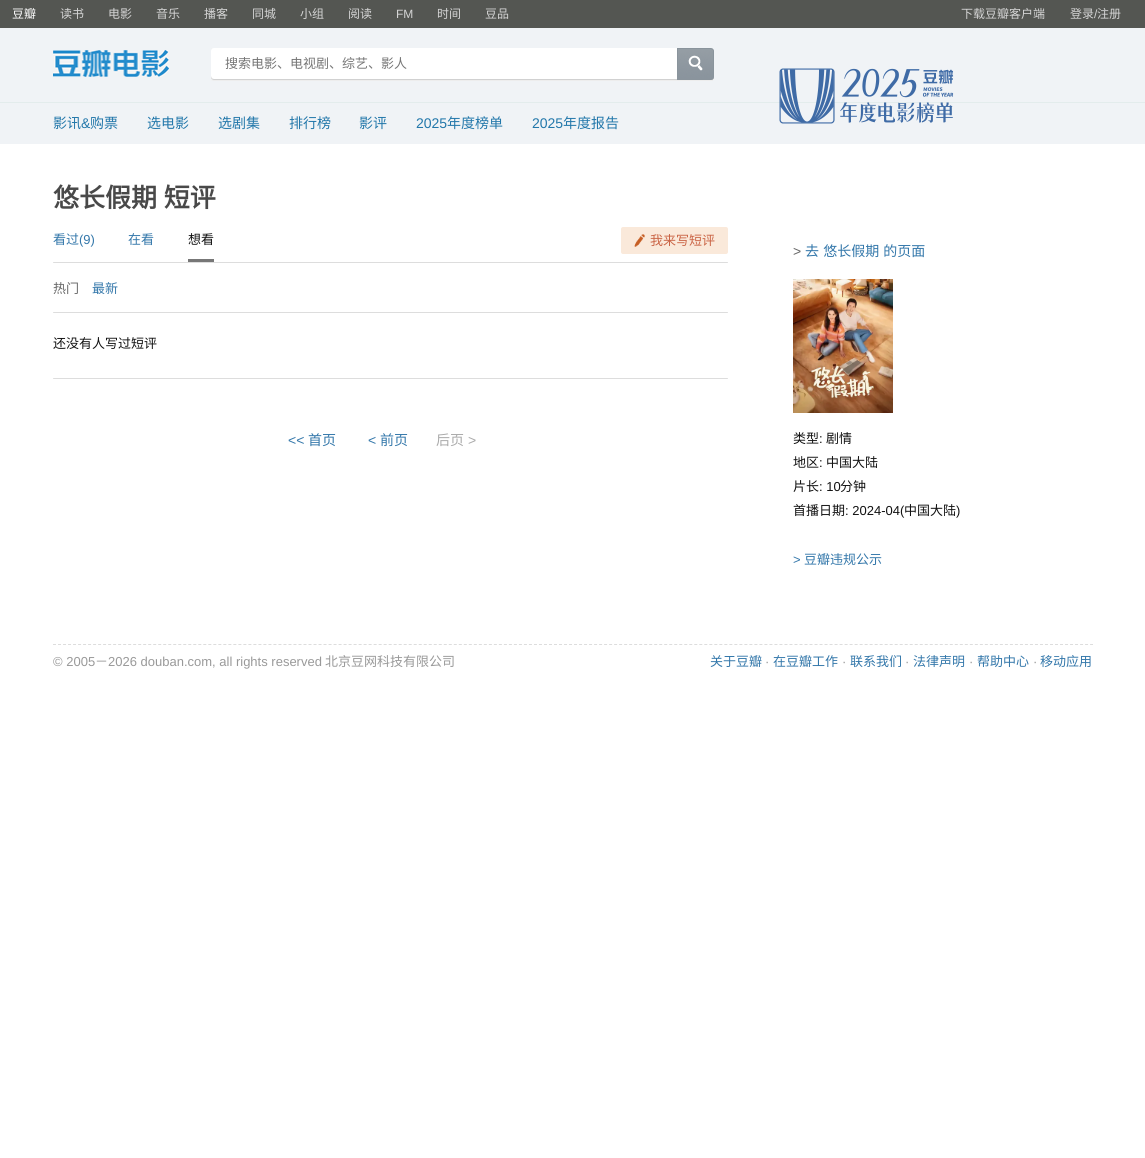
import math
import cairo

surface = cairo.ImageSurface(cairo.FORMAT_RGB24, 1145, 1158)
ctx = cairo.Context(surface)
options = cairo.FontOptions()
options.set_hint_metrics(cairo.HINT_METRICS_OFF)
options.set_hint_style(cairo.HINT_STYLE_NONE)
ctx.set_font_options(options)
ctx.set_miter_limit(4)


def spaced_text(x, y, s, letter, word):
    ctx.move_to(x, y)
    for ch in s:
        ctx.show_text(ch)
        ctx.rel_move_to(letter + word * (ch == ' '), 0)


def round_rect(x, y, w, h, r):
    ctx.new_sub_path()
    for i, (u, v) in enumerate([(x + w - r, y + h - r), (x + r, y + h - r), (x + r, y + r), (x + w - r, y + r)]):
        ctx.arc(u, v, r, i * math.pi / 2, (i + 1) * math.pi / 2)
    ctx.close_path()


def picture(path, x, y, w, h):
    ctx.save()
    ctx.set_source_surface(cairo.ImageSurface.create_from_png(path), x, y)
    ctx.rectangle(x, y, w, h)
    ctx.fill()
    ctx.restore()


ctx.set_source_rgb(1, 1, 1)
ctx.paint()
ctx.set_source_rgb(0.329, 0.337, 0.322)
ctx.rectangle(0, 0, 1145, 28)
ctx.fill()
ctx.select_font_face("Noto Sans CJK SC")
ctx.set_font_size(12)
ctx.set_source_rgb(1, 1, 1)
ctx.move_to(12, 18)
ctx.show_text("豆瓣")
ctx.set_source_rgb(0.835, 0.835, 0.835)
ctx.move_to(60, 18)
ctx.show_text("读书")
ctx.move_to(108, 18)
ctx.show_text("电影")
ctx.move_to(156, 18)
ctx.show_text("音乐")
ctx.move_to(204, 18)
ctx.show_text("播客")
ctx.move_to(252, 18)
ctx.show_text("同城")
ctx.move_to(300, 18)
ctx.show_text("小组")
ctx.move_to(348, 18)
ctx.show_text("阅读")
ctx.select_font_face("Liberation Sans")
ctx.move_to(396, 18)
ctx.show_text("FM")
ctx.select_font_face("Noto Sans CJK SC")
ctx.move_to(437, 18)
ctx.show_text("时间")
ctx.move_to(485, 18)
ctx.show_text("豆品")
ctx.move_to(961, 18)
ctx.show_text("下载豆瓣客户端")
ctx.move_to(1070, 18)
ctx.show_text("登录")
ctx.select_font_face("Liberation Sans")
ctx.move_to(1094, 18)
ctx.show_text("/")
ctx.select_font_face("Noto Sans CJK SC")
ctx.move_to(1097, 18)
ctx.show_text("注册")
ctx.set_source_rgb(0.941, 0.953, 0.961)
ctx.rectangle(0, 28, 1145, 116)
ctx.fill()
ctx.set_source_rgb(0.89, 0.922, 0.925)
ctx.rectangle(0, 102, 1145, 1)
ctx.fill()
picture("img1.png", 53, 50, 116, 27)
picture("img2.png", 211, 48, 466, 33)
ctx.set_font_size(13)
ctx.set_source_rgb(0.459, 0.459, 0.459)
ctx.move_to(225, 68)
ctx.show_text("搜索电影、电视剧、综艺、影人")
picture("img3.png", 677, 48, 37, 33)
ctx.set_font_size(14)
ctx.set_source_rgb(0.133, 0.467, 0.667)
ctx.move_to(53, 128)
ctx.show_text("影讯")
ctx.select_font_face("Liberation Sans")
ctx.move_to(81, 128)
ctx.show_text("&")
ctx.select_font_face("Noto Sans CJK SC")
ctx.move_to(90, 128)
ctx.show_text("购票")
ctx.move_to(147, 128)
ctx.show_text("选电影")
ctx.move_to(218, 128)
ctx.show_text("选剧集")
ctx.move_to(289, 128)
ctx.show_text("排行榜")
ctx.move_to(359, 128)
ctx.show_text("影评")
ctx.select_font_face("Liberation Sans")
ctx.move_to(416, 128)
ctx.show_text("2025")
ctx.select_font_face("Noto Sans CJK SC")
ctx.move_to(447, 128)
ctx.show_text("年度榜单")
ctx.select_font_face("Liberation Sans")
ctx.move_to(532, 128)
ctx.show_text("2025")
ctx.select_font_face("Noto Sans CJK SC")
ctx.move_to(563, 128)
ctx.show_text("年度报告")
picture("img4.png", 779, 68, 175, 56)
ctx.select_font_face("Noto Sans CJK SC", cairo.FONT_SLANT_NORMAL, cairo.FONT_WEIGHT_BOLD)
ctx.set_font_size(26)
ctx.set_source_rgb(0.286, 0.286, 0.286)
spaced_text(53, 207, "悠长假期 短评", 0, 1)
ctx.select_font_face("Noto Sans CJK SC")
ctx.set_font_size(13)
ctx.set_source_rgb(0.2, 0.467, 0.667)
ctx.move_to(53, 244)
ctx.show_text("看过")
ctx.select_font_face("Liberation Sans")
ctx.move_to(79, 244)
ctx.show_text("(9)")
ctx.select_font_face("Noto Sans CJK SC")
ctx.move_to(128, 244)
ctx.show_text("在看")
ctx.set_source_rgb(0.467, 0.467, 0.467)
ctx.rectangle(188, 259, 26, 3)
ctx.fill()
ctx.set_source_rgb(0.067, 0.067, 0.067)
ctx.move_to(188, 244)
ctx.show_text("想看")
ctx.set_source_rgb(0.98, 0.914, 0.855)
round_rect(621, 227, 107, 27, 2)
ctx.fill()
picture("img5.png", 634, 234, 11, 13)
ctx.set_source_rgb(0.792, 0.392, 0.271)
ctx.move_to(650, 245)
ctx.show_text("我来写短评")
ctx.set_source_rgb(0.867, 0.867, 0.867)
round_rect(53, 262, 675, 1, 0.5)
ctx.fill()
ctx.set_source_rgb(0.4, 0.4, 0.4)
ctx.move_to(53, 293)
ctx.show_text("热门")
ctx.set_source_rgb(0.2, 0.467, 0.667)
ctx.move_to(92, 293)
ctx.show_text("最新")
ctx.set_source_rgb(0.867, 0.867, 0.867)
round_rect(53, 312, 675, 1, 0.5)
ctx.fill()
ctx.set_source_rgb(0.067, 0.067, 0.067)
ctx.move_to(53, 348)
ctx.show_text("还没有人写过短评")
ctx.set_source_rgb(0.867, 0.867, 0.867)
round_rect(53, 378, 675, 1, 0.5)
ctx.fill()
ctx.select_font_face("Liberation Sans")
ctx.set_font_size(14)
ctx.set_source_rgb(0.2, 0.467, 0.667)
ctx.move_to(288, 445)
ctx.show_text("<<")
ctx.select_font_face("Noto Sans CJK SC")
ctx.move_to(308, 445)
ctx.show_text("首页")
ctx.select_font_face("Liberation Sans")
ctx.move_to(368, 445)
ctx.show_text("<")
ctx.select_font_face("Noto Sans CJK SC")
ctx.move_to(380, 445)
ctx.show_text("前页")
ctx.set_source_rgb(0.667, 0.667, 0.667)
ctx.move_to(436, 445)
ctx.show_text("后页")
ctx.select_font_face("Liberation Sans")
ctx.move_to(468, 445)
ctx.show_text(">")
ctx.set_source_rgb(0.4, 0.4, 0.4)
ctx.move_to(793, 256)
ctx.show_text(">")
ctx.select_font_face("Noto Sans CJK SC")
ctx.set_source_rgb(0.2, 0.467, 0.667)
spaced_text(805, 256, "去 悠长假期 的页面", 0, 1)
picture("img6.png", 793, 279, 100, 134)
ctx.set_font_size(13)
ctx.set_source_rgb(0.067, 0.067, 0.067)
ctx.move_to(793, 443)
ctx.show_text("类型")
ctx.select_font_face("Liberation Sans")
ctx.move_to(819, 443)
ctx.show_text(":")
ctx.select_font_face("Noto Sans CJK SC")
ctx.move_to(826, 443)
ctx.show_text("剧情")
ctx.move_to(793, 467)
ctx.show_text("地区")
ctx.select_font_face("Liberation Sans")
ctx.move_to(819, 467)
ctx.show_text(":")
ctx.select_font_face("Noto Sans CJK SC")
ctx.move_to(826, 467)
ctx.show_text("中国大陆")
ctx.move_to(793, 491)
ctx.show_text("片长")
ctx.select_font_face("Liberation Sans")
ctx.move_to(819, 491)
ctx.show_text(": 10")
ctx.select_font_face("Noto Sans CJK SC")
ctx.move_to(840, 491)
ctx.show_text("分钟")
ctx.move_to(793, 515)
ctx.show_text("首播日期")
ctx.select_font_face("Liberation Sans")
ctx.move_to(845, 515)
ctx.show_text(": 2024-04(")
ctx.select_font_face("Noto Sans CJK SC")
ctx.move_to(904, 515)
ctx.show_text("中国大陆")
ctx.select_font_face("Liberation Sans")
ctx.move_to(956, 515)
ctx.show_text(")")
ctx.set_source_rgb(0.2, 0.467, 0.667)
ctx.move_to(793, 564)
ctx.show_text(">")
ctx.select_font_face("Noto Sans CJK SC")
ctx.move_to(804, 564)
ctx.show_text("豆瓣违规公示")
ctx.new_path()
ctx.move_to(53, 644.5)
ctx.line_to(1093, 644.5)
ctx.set_source_rgb(0.867, 0.867, 0.867)
ctx.set_line_width(1)
ctx.set_dash([3, 2.01])
ctx.stroke()
ctx.save()
ctx.rectangle(53, 645, 1040, 33)
ctx.clip()
ctx.select_font_face("Liberation Sans")
ctx.set_source_rgb(0.6, 0.6, 0.6)
ctx.move_to(53, 666)
ctx.show_text("© 2005")
ctx.restore()
ctx.set_source_rgb(0.6, 0.6, 0.6)
ctx.move_to(95, 666)
ctx.show_text("－")
ctx.select_font_face("Liberation Sans")
ctx.move_to(108, 666)
ctx.show_text("2026 douban.com, all rights reserved")
ctx.select_font_face("Noto Sans CJK SC")
ctx.move_to(325, 666)
ctx.show_text("北京豆网科技有限公司")
ctx.set_source_rgb(0.2, 0.467, 0.667)
ctx.move_to(710, 666)
ctx.show_text("关于豆瓣")
ctx.select_font_face("Liberation Sans")
ctx.set_source_rgb(0.6, 0.6, 0.6)
ctx.move_to(765, 666)
ctx.show_text("·")
ctx.select_font_face("Noto Sans CJK SC")
ctx.set_source_rgb(0.2, 0.467, 0.667)
ctx.move_to(773, 666)
ctx.show_text("在豆瓣工作")
ctx.select_font_face("Liberation Sans")
ctx.set_source_rgb(0.6, 0.6, 0.6)
ctx.move_to(842, 666)
ctx.show_text("·")
ctx.select_font_face("Noto Sans CJK SC")
ctx.set_source_rgb(0.2, 0.467, 0.667)
ctx.move_to(850, 666)
ctx.show_text("联系我们")
ctx.select_font_face("Liberation Sans")
ctx.set_source_rgb(0.6, 0.6, 0.6)
ctx.move_to(905, 666)
ctx.show_text("·")
ctx.select_font_face("Noto Sans CJK SC")
ctx.set_source_rgb(0.2, 0.467, 0.667)
ctx.move_to(913, 666)
ctx.show_text("法律声明")
ctx.select_font_face("Liberation Sans")
ctx.set_source_rgb(0.6, 0.6, 0.6)
ctx.move_to(969, 666)
ctx.show_text("·")
ctx.select_font_face("Noto Sans CJK SC")
ctx.set_source_rgb(0.2, 0.467, 0.667)
ctx.move_to(977, 666)
ctx.show_text("帮助中心")
ctx.select_font_face("Liberation Sans")
ctx.set_source_rgb(0.6, 0.6, 0.6)
ctx.move_to(1033, 666)
ctx.show_text("·")
ctx.select_font_face("Noto Sans CJK SC")
ctx.set_source_rgb(0.2, 0.467, 0.667)
ctx.move_to(1040, 666)
ctx.show_text("移动应用")
surface.write_to_png("page.png")
